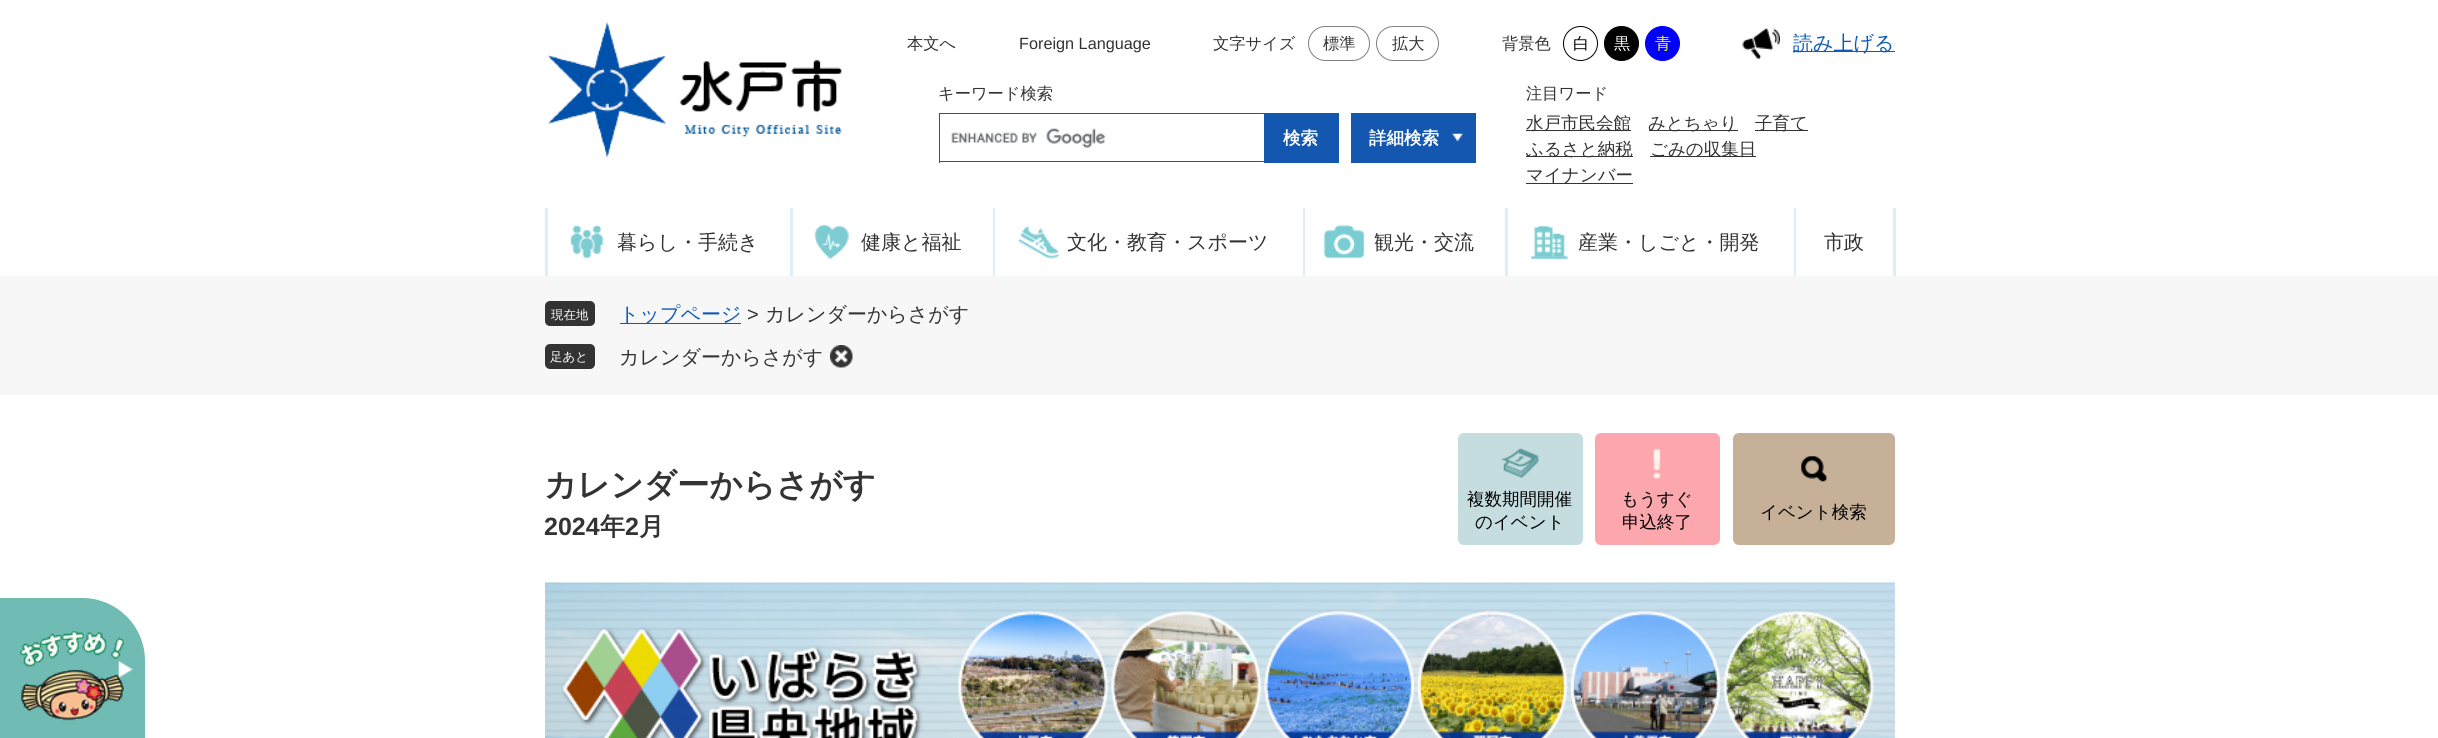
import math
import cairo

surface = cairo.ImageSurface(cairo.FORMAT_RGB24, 2438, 738)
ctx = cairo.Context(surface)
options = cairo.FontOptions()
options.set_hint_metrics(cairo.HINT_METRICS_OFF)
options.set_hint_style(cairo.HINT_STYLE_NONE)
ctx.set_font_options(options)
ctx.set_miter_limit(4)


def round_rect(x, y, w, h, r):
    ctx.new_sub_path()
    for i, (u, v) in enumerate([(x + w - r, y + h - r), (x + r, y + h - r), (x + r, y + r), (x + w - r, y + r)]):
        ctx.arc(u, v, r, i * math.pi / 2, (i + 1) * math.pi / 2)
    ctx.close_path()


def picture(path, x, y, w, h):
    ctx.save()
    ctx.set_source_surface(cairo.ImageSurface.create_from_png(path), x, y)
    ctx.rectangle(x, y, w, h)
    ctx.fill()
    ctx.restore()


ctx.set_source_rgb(1, 1, 1)
ctx.paint()
picture("img1.png", 547, 22, 295, 136)
ctx.select_font_face("WenQuanYi Zen Hei Medium")
ctx.set_font_size(16.25)
ctx.set_source_rgb(0.2, 0.2, 0.2)
ctx.move_to(907, 49)
ctx.show_text("本文へ")
ctx.select_font_face("Liberation Sans")
ctx.move_to(1019, 49)
ctx.show_text("Foreign Language")
ctx.select_font_face("WenQuanYi Zen Hei Medium")
ctx.move_to(1213, 49)
ctx.show_text("文字サイズ")
round_rect(1308.5, 26.5, 61, 34, 17)
ctx.set_source_rgb(0.498, 0.498, 0.498)
ctx.set_line_width(1)
ctx.stroke()
ctx.set_source_rgb(0.2, 0.2, 0.2)
ctx.move_to(1323, 49)
ctx.show_text("標準")
round_rect(1376.5, 26.5, 62, 34, 17)
ctx.set_source_rgb(0.498, 0.498, 0.498)
ctx.stroke()
ctx.set_source_rgb(0.2, 0.2, 0.2)
ctx.move_to(1392, 49)
ctx.show_text("拡大")
ctx.move_to(1502, 49)
ctx.show_text("背景色")
ctx.new_path()
ctx.arc(1580.5, 43.5, 17, 0, 2 * math.pi)
ctx.set_source_rgb(0, 0, 0)
ctx.stroke()
ctx.move_to(1573, 49)
ctx.show_text("白")
ctx.new_path()
ctx.arc(1621.5, 43.5, 17, 0, 2 * math.pi)
ctx.fill_preserve()
ctx.stroke()
ctx.set_source_rgb(1, 1, 1)
ctx.move_to(1614, 49)
ctx.show_text("黒")
ctx.set_source_rgb(0, 0, 1)
ctx.new_path()
ctx.arc(1662.5, 43.5, 17, 0, 2 * math.pi)
ctx.fill_preserve()
ctx.stroke()
ctx.set_source_rgb(1, 1, 0)
ctx.move_to(1655, 49)
ctx.show_text("青")
picture("img2.png", 1742, 28, 38, 31)
ctx.set_source_rgb(0.051, 0.349, 0.718)
ctx.rectangle(1793, 51, 102, 1)
ctx.fill()
ctx.set_font_size(20)
ctx.move_to(1793, 50)
ctx.show_text("読み上げる")
ctx.set_font_size(16.25)
ctx.set_source_rgb(0.2, 0.2, 0.2)
ctx.move_to(938, 99)
ctx.show_text("キーワード検索")
picture("img3.png", 951, 128, 154, 20)
ctx.set_source_rgb(0.078, 0.341, 0.69)
ctx.rectangle(939, 113, 325, 1)
ctx.fill()
ctx.rectangle(939, 161, 325, 1)
ctx.fill()
ctx.rectangle(939, 113, 1, 50)
ctx.fill()
ctx.rectangle(1264, 113, 75, 50)
ctx.fill()
ctx.select_font_face("WenQuanYi Zen Hei", cairo.FONT_SLANT_NORMAL, cairo.FONT_WEIGHT_BOLD)
ctx.set_font_size(17.5)
ctx.set_source_rgb(1, 1, 1)
ctx.move_to(1283, 144)
ctx.show_text("検索")
ctx.set_source_rgb(0.078, 0.341, 0.69)
ctx.rectangle(1351, 113, 125, 50)
ctx.fill()
picture("img4.png", 1452, 133, 11, 9)
ctx.set_source_rgb(1, 1, 1)
ctx.move_to(1369, 144)
ctx.show_text("詳細検索")
ctx.select_font_face("WenQuanYi Zen Hei Medium")
ctx.set_font_size(16.25)
ctx.set_source_rgb(0.2, 0.2, 0.2)
ctx.move_to(1526, 99)
ctx.show_text("注目ワード")
ctx.rectangle(1526, 130, 105, 1)
ctx.fill()
ctx.set_font_size(17.5)
ctx.move_to(1526, 129)
ctx.show_text("水戸市民会館")
ctx.rectangle(1649, 130, 89, 1)
ctx.fill()
ctx.move_to(1648, 129)
ctx.show_text("みとちゃり")
ctx.rectangle(1755, 130, 53, 1)
ctx.fill()
ctx.move_to(1755, 129)
ctx.show_text("子育て")
ctx.rectangle(1526, 156, 107, 1)
ctx.fill()
ctx.move_to(1526, 155)
ctx.show_text("ふるさと納税")
ctx.rectangle(1650, 156, 106, 1)
ctx.fill()
ctx.move_to(1650, 155)
ctx.show_text("ごみの収集日")
ctx.rectangle(1526, 183, 107, 1)
ctx.fill()
ctx.move_to(1526, 181)
ctx.show_text("マイナンバー")
ctx.set_source_rgb(0.867, 0.933, 0.984)
ctx.rectangle(545, 208, 3, 68)
ctx.fill()
picture("img5.png", 570, 225, 34, 34)
ctx.set_font_size(20)
ctx.set_source_rgb(0.2, 0.2, 0.2)
ctx.move_to(617, 249)
ctx.show_text("暮らし・手続き")
ctx.set_source_rgb(0.867, 0.933, 0.984)
ctx.rectangle(790, 208, 3, 68)
ctx.fill()
picture("img6.png", 814, 225, 35, 34)
ctx.set_source_rgb(0.2, 0.2, 0.2)
ctx.move_to(861, 249)
ctx.show_text("健康と福祉")
ctx.set_source_rgb(0.867, 0.933, 0.984)
ctx.rectangle(993, 208, 2, 68)
ctx.fill()
picture("img7.png", 1018, 226, 41, 33)
ctx.set_source_rgb(0.2, 0.2, 0.2)
ctx.move_to(1067, 249)
ctx.show_text("文化・教育・スポーツ")
ctx.set_source_rgb(0.867, 0.933, 0.984)
ctx.rectangle(1303, 208, 2, 68)
ctx.fill()
picture("img8.png", 1323, 225, 42, 34)
ctx.set_source_rgb(0.2, 0.2, 0.2)
ctx.move_to(1374, 249)
ctx.show_text("観光・交流")
ctx.set_source_rgb(0.867, 0.933, 0.984)
ctx.rectangle(1505, 208, 3, 68)
ctx.fill()
picture("img9.png", 1530, 226, 39, 33)
ctx.set_source_rgb(0.2, 0.2, 0.2)
ctx.move_to(1578, 249)
ctx.show_text("産業・しごと・開発")
ctx.set_source_rgb(0.867, 0.933, 0.984)
ctx.rectangle(1893, 208, 3, 68)
ctx.fill()
ctx.rectangle(1794, 208, 2, 68)
ctx.fill()
ctx.set_source_rgb(0.2, 0.2, 0.2)
ctx.move_to(1824, 249)
ctx.show_text("市政")
ctx.set_source_rgb(0.439, 0.733, 0.702)
ctx.new_path()
ctx.move_to(0, 598)
ctx.line_to(82, 598)
ctx.curve_to(117, 598, 145, 626, 145, 661)
ctx.line_to(145, 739)
ctx.line_to(0, 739)
ctx.close_path()
ctx.fill()
picture("img10.png", 19, 631, 105, 90)
picture("img11.png", 118, 661, 15, 17)
ctx.set_source_rgb(0.965, 0.965, 0.965)
ctx.rectangle(0, 276, 2438, 119)
ctx.fill()
ctx.set_source_rgb(0.2, 0.2, 0.2)
round_rect(545, 301, 50, 25, 5)
ctx.fill()
ctx.set_font_size(12.5)
ctx.set_source_rgb(1, 1, 1)
ctx.move_to(551, 319)
ctx.show_text("現在地")
ctx.set_source_rgb(0.051, 0.349, 0.718)
ctx.rectangle(620, 323, 121, 1)
ctx.fill()
ctx.set_font_size(20)
ctx.move_to(619, 321)
ctx.show_text("トップページ")
ctx.select_font_face("Liberation Sans")
ctx.set_source_rgb(0.2, 0.2, 0.2)
ctx.move_to(747, 321)
ctx.show_text(">")
ctx.select_font_face("WenQuanYi Zen Hei Medium")
ctx.move_to(765, 321)
ctx.show_text("カレンダーからさがす")
round_rect(545, 344, 50, 25, 5)
ctx.fill()
ctx.set_font_size(12.5)
ctx.set_source_rgb(1, 1, 1)
ctx.move_to(550, 361)
ctx.show_text("足あと")
ctx.set_font_size(20)
ctx.set_source_rgb(0.2, 0.2, 0.2)
ctx.move_to(619, 364)
ctx.show_text("カレンダーからさがす")
picture("img12.png", 830, 345, 23, 23)
ctx.select_font_face("WenQuanYi Zen Hei", cairo.FONT_SLANT_NORMAL, cairo.FONT_WEIGHT_BOLD)
ctx.set_font_size(32.5)
ctx.move_to(544, 496)
ctx.show_text("カレンダーからさがす")
ctx.set_source_rgb(0.776, 0.867, 0.878)
round_rect(1458, 433, 125, 112, 6)
ctx.fill()
picture("img13.png", 1501, 448, 38, 30)
ctx.select_font_face("WenQuanYi Zen Hei Medium")
ctx.set_font_size(17.5)
ctx.set_source_rgb(0, 0, 0)
ctx.move_to(1467, 505)
ctx.show_text("複数期間開催")
ctx.move_to(1475, 528)
ctx.show_text("のイベント")
ctx.set_source_rgb(0.988, 0.655, 0.678)
round_rect(1595, 433, 125, 112, 6)
ctx.fill()
picture("img14.png", 1653, 448, 8, 31)
ctx.set_source_rgb(0, 0, 0)
ctx.move_to(1621, 505)
ctx.show_text("もうすぐ")
ctx.move_to(1622, 528)
ctx.show_text("申込終了")
ctx.set_source_rgb(0.776, 0.694, 0.596)
round_rect(1733, 433, 162, 112, 6)
ctx.fill()
picture("img15.png", 1801, 456, 26, 26)
ctx.set_source_rgb(0, 0, 0)
ctx.move_to(1760, 518)
ctx.show_text("イベント検索")
ctx.select_font_face("Liberation Sans", cairo.FONT_SLANT_NORMAL, cairo.FONT_WEIGHT_BOLD)
ctx.set_font_size(25)
ctx.set_source_rgb(0.2, 0.2, 0.2)
ctx.move_to(544, 535)
ctx.show_text("2024")
ctx.select_font_face("WenQuanYi Zen Hei", cairo.FONT_SLANT_NORMAL, cairo.FONT_WEIGHT_BOLD)
ctx.move_to(600, 535)
ctx.show_text("年")
ctx.select_font_face("Liberation Sans", cairo.FONT_SLANT_NORMAL, cairo.FONT_WEIGHT_BOLD)
ctx.move_to(625, 535)
ctx.show_text("2")
ctx.select_font_face("WenQuanYi Zen Hei", cairo.FONT_SLANT_NORMAL, cairo.FONT_WEIGHT_BOLD)
ctx.move_to(639, 535)
ctx.show_text("月")
picture("img16.png", 545, 582, 1350, 156)
surface.write_to_png("page.png")
